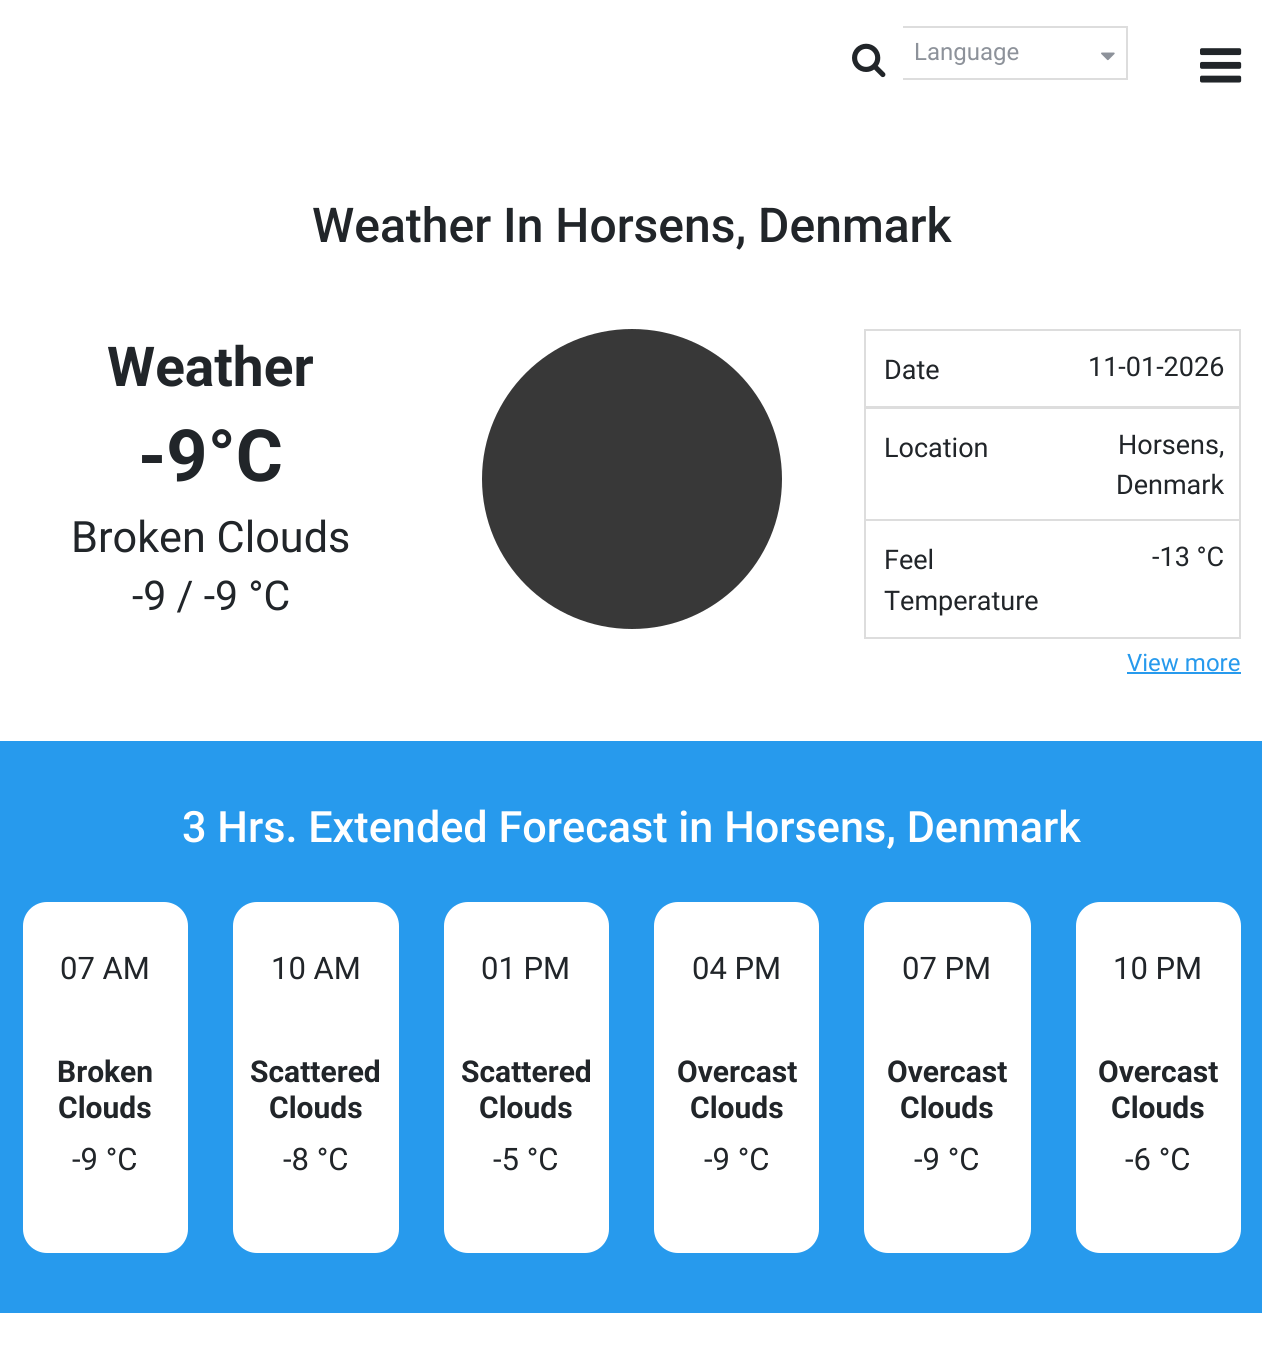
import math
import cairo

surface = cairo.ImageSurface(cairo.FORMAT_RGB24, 1262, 1363)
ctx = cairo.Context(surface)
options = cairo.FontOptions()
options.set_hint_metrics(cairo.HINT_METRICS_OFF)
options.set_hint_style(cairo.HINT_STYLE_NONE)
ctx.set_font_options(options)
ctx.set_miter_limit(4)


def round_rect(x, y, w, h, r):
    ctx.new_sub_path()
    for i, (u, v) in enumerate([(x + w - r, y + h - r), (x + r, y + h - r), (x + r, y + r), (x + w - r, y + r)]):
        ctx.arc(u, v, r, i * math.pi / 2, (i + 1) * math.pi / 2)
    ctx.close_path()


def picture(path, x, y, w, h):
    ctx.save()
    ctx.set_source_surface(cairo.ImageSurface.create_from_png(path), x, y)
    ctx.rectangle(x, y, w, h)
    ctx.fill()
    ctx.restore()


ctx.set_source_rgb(1, 1, 1)
ctx.paint()
ctx.rectangle(901, 27, 226, 52)
ctx.set_source_rgb(0.867, 0.867, 0.867)
ctx.stroke()
ctx.set_source_rgb(1, 1, 1)
ctx.rectangle(900, 26, 3, 54)
ctx.fill()
picture("img1.png", 852, 43, 34, 35)
ctx.select_font_face("Roboto")
ctx.set_font_size(24)
ctx.set_source_rgb(0.553, 0.573, 0.604)
ctx.move_to(914, 60)
ctx.show_text("Language")
picture("img2.png", 1101, 52, 14, 9)
picture("img3.png", 1200, 48, 42, 35)
ctx.select_font_face("Roboto Medium")
ctx.set_font_size(48)
ctx.set_source_rgb(0.129, 0.145, 0.161)
ctx.move_to(312, 242)
ctx.show_text("Weather In Horsens, Denmark")
ctx.select_font_face("Roboto", cairo.FONT_SLANT_NORMAL, cairo.FONT_WEIGHT_BOLD)
ctx.set_font_size(55)
ctx.move_to(107, 386)
ctx.show_text("Weather")
ctx.set_font_size(72)
ctx.move_to(138, 481)
ctx.show_text("-9°C")
ctx.select_font_face("Roboto")
ctx.set_font_size(43.2)
ctx.move_to(71, 552)
ctx.show_text("Broken Clouds")
ctx.set_font_size(41)
ctx.move_to(132, 610)
ctx.show_text("-9 / -9 °C")
ctx.set_source_rgb(0.22, 0.22, 0.22)
ctx.new_path()
ctx.arc(632, 479, 150, 0, 2 * math.pi)
ctx.fill()
ctx.rectangle(865, 330, 375, 77)
ctx.set_source_rgb(0.867, 0.867, 0.867)
ctx.stroke()
ctx.set_font_size(27)
ctx.set_source_rgb(0.129, 0.145, 0.161)
ctx.move_to(884, 379)
ctx.show_text("Date")
ctx.move_to(1088, 376)
ctx.show_text("11-01-2026")
ctx.rectangle(865, 408, 375, 112)
ctx.set_source_rgb(0.867, 0.867, 0.867)
ctx.stroke()
ctx.set_source_rgb(0.129, 0.145, 0.161)
ctx.move_to(884, 457)
ctx.show_text("Location")
ctx.move_to(1118, 454)
ctx.show_text("Horsens,")
ctx.move_to(1116, 494)
ctx.show_text("Denmark")
ctx.rectangle(865, 520, 375, 118)
ctx.set_source_rgb(0.867, 0.867, 0.867)
ctx.stroke()
ctx.set_source_rgb(0.129, 0.145, 0.161)
ctx.move_to(884, 569)
ctx.show_text("Feel")
ctx.move_to(884, 610)
ctx.show_text("Temperature")
ctx.move_to(1152, 566)
ctx.show_text("-13 °C")
ctx.set_font_size(24)
ctx.set_source_rgb(0.153, 0.604, 0.929)
ctx.move_to(1127, 671)
ctx.show_text("View more")
ctx.rectangle(1127, 672, 114, 2)
ctx.fill()
ctx.rectangle(0, 741, 1262, 572)
ctx.fill()
ctx.select_font_face("Roboto Medium")
ctx.set_font_size(43.2)
ctx.set_source_rgb(1, 1, 1)
ctx.move_to(182, 842)
ctx.show_text("3 Hrs. Extended Forecast in Horsens, Denmark")
round_rect(23, 902, 165, 351, 24)
ctx.fill()
ctx.select_font_face("Roboto")
ctx.set_font_size(31)
ctx.set_source_rgb(0.129, 0.145, 0.161)
ctx.move_to(60, 979)
ctx.show_text("07 AM")
ctx.select_font_face("Roboto", cairo.FONT_SLANT_NORMAL, cairo.FONT_WEIGHT_BOLD)
ctx.set_font_size(30)
ctx.move_to(57, 1082)
ctx.show_text("Broken")
ctx.move_to(58, 1118)
ctx.show_text("Clouds")
ctx.select_font_face("Roboto")
ctx.set_font_size(31)
ctx.move_to(72, 1170)
ctx.show_text("-9 °C")
ctx.set_source_rgb(1, 1, 1)
round_rect(233, 902, 166, 351, 24)
ctx.fill()
ctx.set_source_rgb(0.129, 0.145, 0.161)
ctx.move_to(271, 979)
ctx.show_text("10 AM")
ctx.select_font_face("Roboto", cairo.FONT_SLANT_NORMAL, cairo.FONT_WEIGHT_BOLD)
ctx.set_font_size(30)
ctx.move_to(250, 1082)
ctx.show_text("Scattered")
ctx.move_to(269, 1118)
ctx.show_text("Clouds")
ctx.select_font_face("Roboto")
ctx.set_font_size(31)
ctx.move_to(283, 1170)
ctx.show_text("-8 °C")
ctx.set_source_rgb(1, 1, 1)
round_rect(444, 902, 165, 351, 24)
ctx.fill()
ctx.set_source_rgb(0.129, 0.145, 0.161)
ctx.move_to(481, 979)
ctx.show_text("01 PM")
ctx.select_font_face("Roboto", cairo.FONT_SLANT_NORMAL, cairo.FONT_WEIGHT_BOLD)
ctx.set_font_size(30)
ctx.move_to(461, 1082)
ctx.show_text("Scattered")
ctx.move_to(479, 1118)
ctx.show_text("Clouds")
ctx.select_font_face("Roboto")
ctx.set_font_size(31)
ctx.move_to(493, 1170)
ctx.show_text("-5 °C")
ctx.set_source_rgb(1, 1, 1)
round_rect(654, 902, 165, 351, 24)
ctx.fill()
ctx.set_source_rgb(0.129, 0.145, 0.161)
ctx.move_to(692, 979)
ctx.show_text("04 PM")
ctx.select_font_face("Roboto", cairo.FONT_SLANT_NORMAL, cairo.FONT_WEIGHT_BOLD)
ctx.set_font_size(30)
ctx.move_to(677, 1082)
ctx.show_text("Overcast")
ctx.move_to(690, 1118)
ctx.show_text("Clouds")
ctx.select_font_face("Roboto")
ctx.set_font_size(31)
ctx.move_to(704, 1170)
ctx.show_text("-9 °C")
ctx.set_source_rgb(1, 1, 1)
round_rect(864, 902, 167, 351, 24)
ctx.fill()
ctx.set_source_rgb(0.129, 0.145, 0.161)
ctx.move_to(902, 979)
ctx.show_text("07 PM")
ctx.select_font_face("Roboto", cairo.FONT_SLANT_NORMAL, cairo.FONT_WEIGHT_BOLD)
ctx.set_font_size(30)
ctx.move_to(887, 1082)
ctx.show_text("Overcast")
ctx.move_to(900, 1118)
ctx.show_text("Clouds")
ctx.select_font_face("Roboto")
ctx.set_font_size(31)
ctx.move_to(914, 1170)
ctx.show_text("-9 °C")
ctx.set_source_rgb(1, 1, 1)
round_rect(1076, 902, 165, 351, 24)
ctx.fill()
ctx.set_source_rgb(0.129, 0.145, 0.161)
ctx.move_to(1113, 979)
ctx.show_text("10 PM")
ctx.select_font_face("Roboto", cairo.FONT_SLANT_NORMAL, cairo.FONT_WEIGHT_BOLD)
ctx.set_font_size(30)
ctx.move_to(1098, 1082)
ctx.show_text("Overcast")
ctx.move_to(1111, 1118)
ctx.show_text("Clouds")
ctx.select_font_face("Roboto")
ctx.set_font_size(31)
ctx.move_to(1125, 1170)
ctx.show_text("-6 °C")
surface.write_to_png("page.png")
